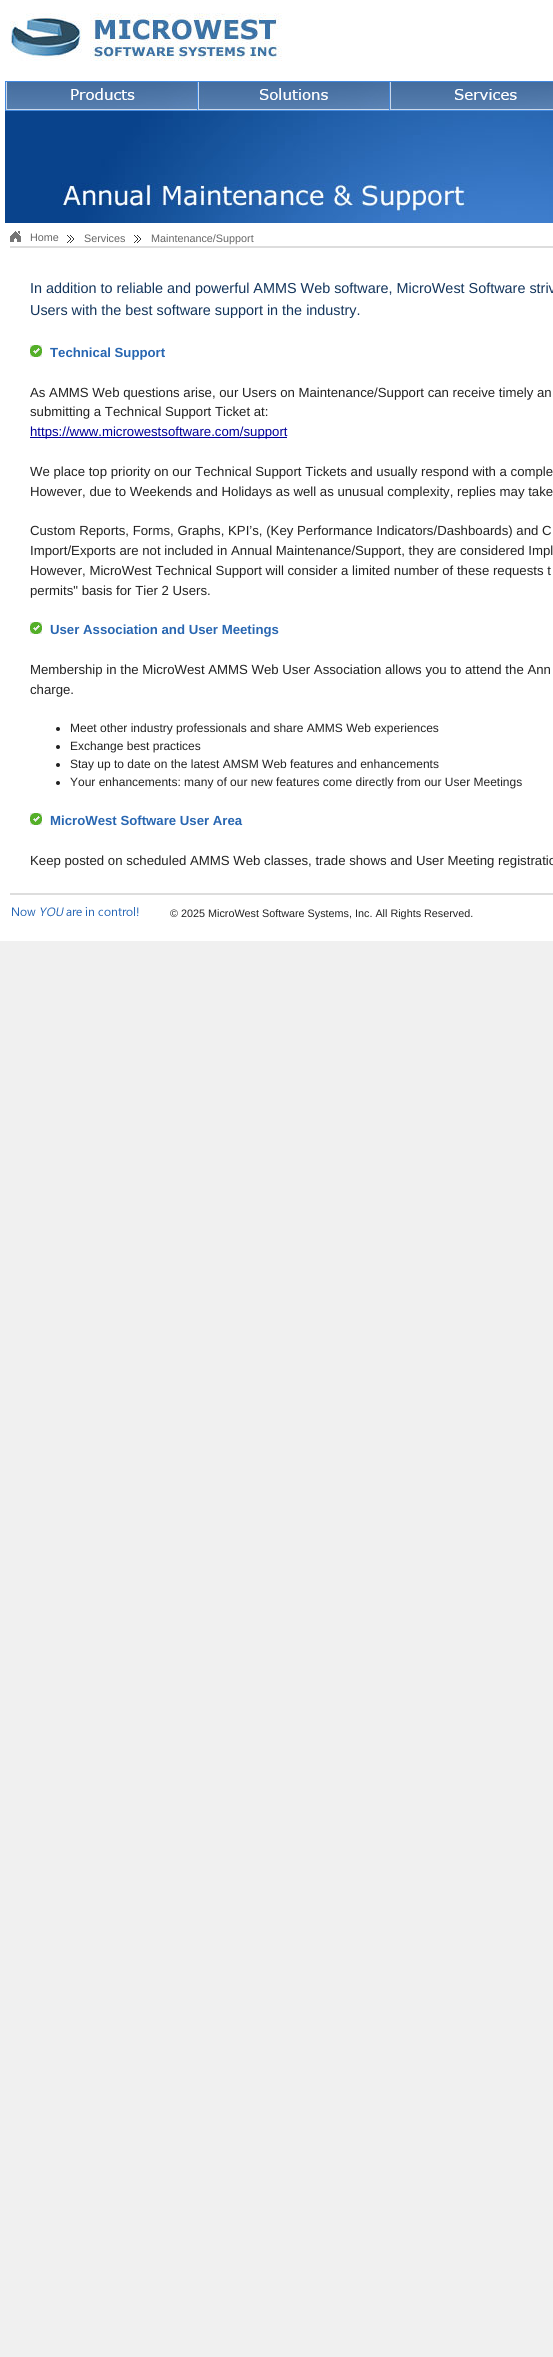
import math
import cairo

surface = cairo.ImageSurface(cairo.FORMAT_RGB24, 553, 2357)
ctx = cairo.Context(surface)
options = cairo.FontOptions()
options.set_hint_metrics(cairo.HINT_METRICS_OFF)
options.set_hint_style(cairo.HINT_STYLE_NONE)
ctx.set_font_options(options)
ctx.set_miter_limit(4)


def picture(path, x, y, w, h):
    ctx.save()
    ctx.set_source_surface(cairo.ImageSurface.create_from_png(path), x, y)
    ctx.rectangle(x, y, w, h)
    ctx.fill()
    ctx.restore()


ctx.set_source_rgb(0.941, 0.941, 0.941)
ctx.paint()
ctx.set_source_rgb(1, 1, 1)
ctx.rectangle(0, 0, 553, 941)
ctx.fill()
picture("img1.png", 10, 13, 272, 48)
picture("img2.png", 5, 81, 192, 30)
picture("img3.png", 197, 81, 192, 30)
picture("img4.png", 389, 81, 164, 30)
picture("img5.png", 5, 111, 548, 112)
picture("img6.png", 10, 231, 11, 11)
ctx.select_font_face("Liberation Sans")
ctx.set_font_size(10.8)
ctx.set_source_rgb(0.4, 0.4, 0.4)
ctx.move_to(30, 241)
ctx.show_text("Home")
picture("img7.png", 67, 235, 7, 8)
ctx.move_to(84, 242)
ctx.show_text("Services")
picture("img7.png", 134, 235, 7, 8)
ctx.move_to(151, 242)
ctx.show_text("Maintenance/Support")
ctx.set_source_rgb(0.867, 0.867, 0.867)
ctx.rectangle(10, 246, 543, 2)
ctx.fill()
ctx.set_font_size(14.4)
ctx.set_source_rgb(0.078, 0.208, 0.361)
ctx.move_to(30, 293)
ctx.show_text("In addition to reliable and powerful AMMS Web software, MicroWest Software striv")
ctx.move_to(30, 315)
ctx.show_text("Users with the best software support in the industry.")
picture("img8.png", 30, 345, 12, 12)
ctx.select_font_face("Liberation Sans", cairo.FONT_SLANT_NORMAL, cairo.FONT_WEIGHT_BOLD)
ctx.set_font_size(13.2)
ctx.set_source_rgb(0.157, 0.4, 0.694)
ctx.move_to(50, 357)
ctx.show_text("Technical Support")
ctx.select_font_face("Liberation Sans")
ctx.set_source_rgb(0.133, 0.133, 0.133)
ctx.move_to(30, 397)
ctx.show_text("As AMMS Web questions arise, our Users on Maintenance/Support can receive timely an")
ctx.move_to(30, 416)
ctx.show_text("submitting a Technical Support Ticket at:")
ctx.set_source_rgb(0, 0, 0.6)
ctx.rectangle(30, 437, 257, 1)
ctx.fill()
ctx.move_to(30, 436)
ctx.show_text("https://www.microwestsoftware.com/support")
ctx.set_source_rgb(0.133, 0.133, 0.133)
ctx.move_to(30, 476)
ctx.show_text("We place top priority on our Technical Support Tickets and usually respond with a comple")
ctx.move_to(30, 496)
ctx.show_text("However, due to Weekends and Holidays as well as unusual complexity, replies may take")
ctx.move_to(30, 535)
ctx.show_text("Custom Reports, Forms, Graphs, KPI’s, (Key Performance Indicators/Dashboards) and C")
ctx.move_to(30, 555)
ctx.show_text("Import/Exports are not included in Annual Maintenance/Support, they are considered Impl")
ctx.move_to(30, 575)
ctx.show_text("However, MicroWest Technical Support will consider a limited number of these requests t")
ctx.move_to(30, 595)
ctx.show_text("permits\" basis for Tier 2 Users.")
picture("img8.png", 30, 622, 12, 12)
ctx.select_font_face("Liberation Sans", cairo.FONT_SLANT_NORMAL, cairo.FONT_WEIGHT_BOLD)
ctx.set_source_rgb(0.157, 0.4, 0.694)
ctx.move_to(50, 634)
ctx.show_text("User Association and User Meetings")
ctx.select_font_face("Liberation Sans")
ctx.set_source_rgb(0.133, 0.133, 0.133)
ctx.move_to(30, 674)
ctx.show_text("Membership in the MicroWest AMMS Web User Association allows you to attend the Ann")
ctx.move_to(30, 694)
ctx.show_text("charge.")
ctx.new_path()
ctx.arc(58, 729, 2, 0, 2 * math.pi)
ctx.fill()
ctx.set_font_size(12)
ctx.move_to(70, 732)
ctx.show_text("Meet other industry professionals and share AMMS Web experiences")
ctx.new_path()
ctx.arc(58, 747, 2, 0, 2 * math.pi)
ctx.fill()
ctx.move_to(70, 750)
ctx.show_text("Exchange best practices")
ctx.new_path()
ctx.arc(58, 765, 2, 0, 2 * math.pi)
ctx.fill()
ctx.move_to(70, 768)
ctx.show_text("Stay up to date on the latest AMSM Web features and enhancements")
ctx.new_path()
ctx.arc(58, 783, 2, 0, 2 * math.pi)
ctx.fill()
ctx.move_to(70, 786)
ctx.show_text("Your enhancements: many of our new features come directly from our User Meetings")
picture("img8.png", 30, 813, 12, 12)
ctx.select_font_face("Liberation Sans", cairo.FONT_SLANT_NORMAL, cairo.FONT_WEIGHT_BOLD)
ctx.set_font_size(13.2)
ctx.set_source_rgb(0.157, 0.4, 0.694)
ctx.move_to(50, 825)
ctx.show_text("MicroWest Software User Area")
ctx.select_font_face("Liberation Sans")
ctx.set_source_rgb(0.133, 0.133, 0.133)
ctx.move_to(30, 865)
ctx.show_text("Keep posted on scheduled AMMS Web classes, trade shows and User Meeting registratio")
ctx.set_source_rgb(0.867, 0.867, 0.867)
ctx.rectangle(10, 893, 543, 2)
ctx.fill()
picture("img9.png", 12, 907, 127, 10)
ctx.set_font_size(10.8)
ctx.set_source_rgb(0.133, 0.133, 0.133)
ctx.move_to(170, 917)
ctx.show_text("© 2025 MicroWest Software Systems, Inc. All Rights Reserved.")
surface.write_to_png("page.png")
